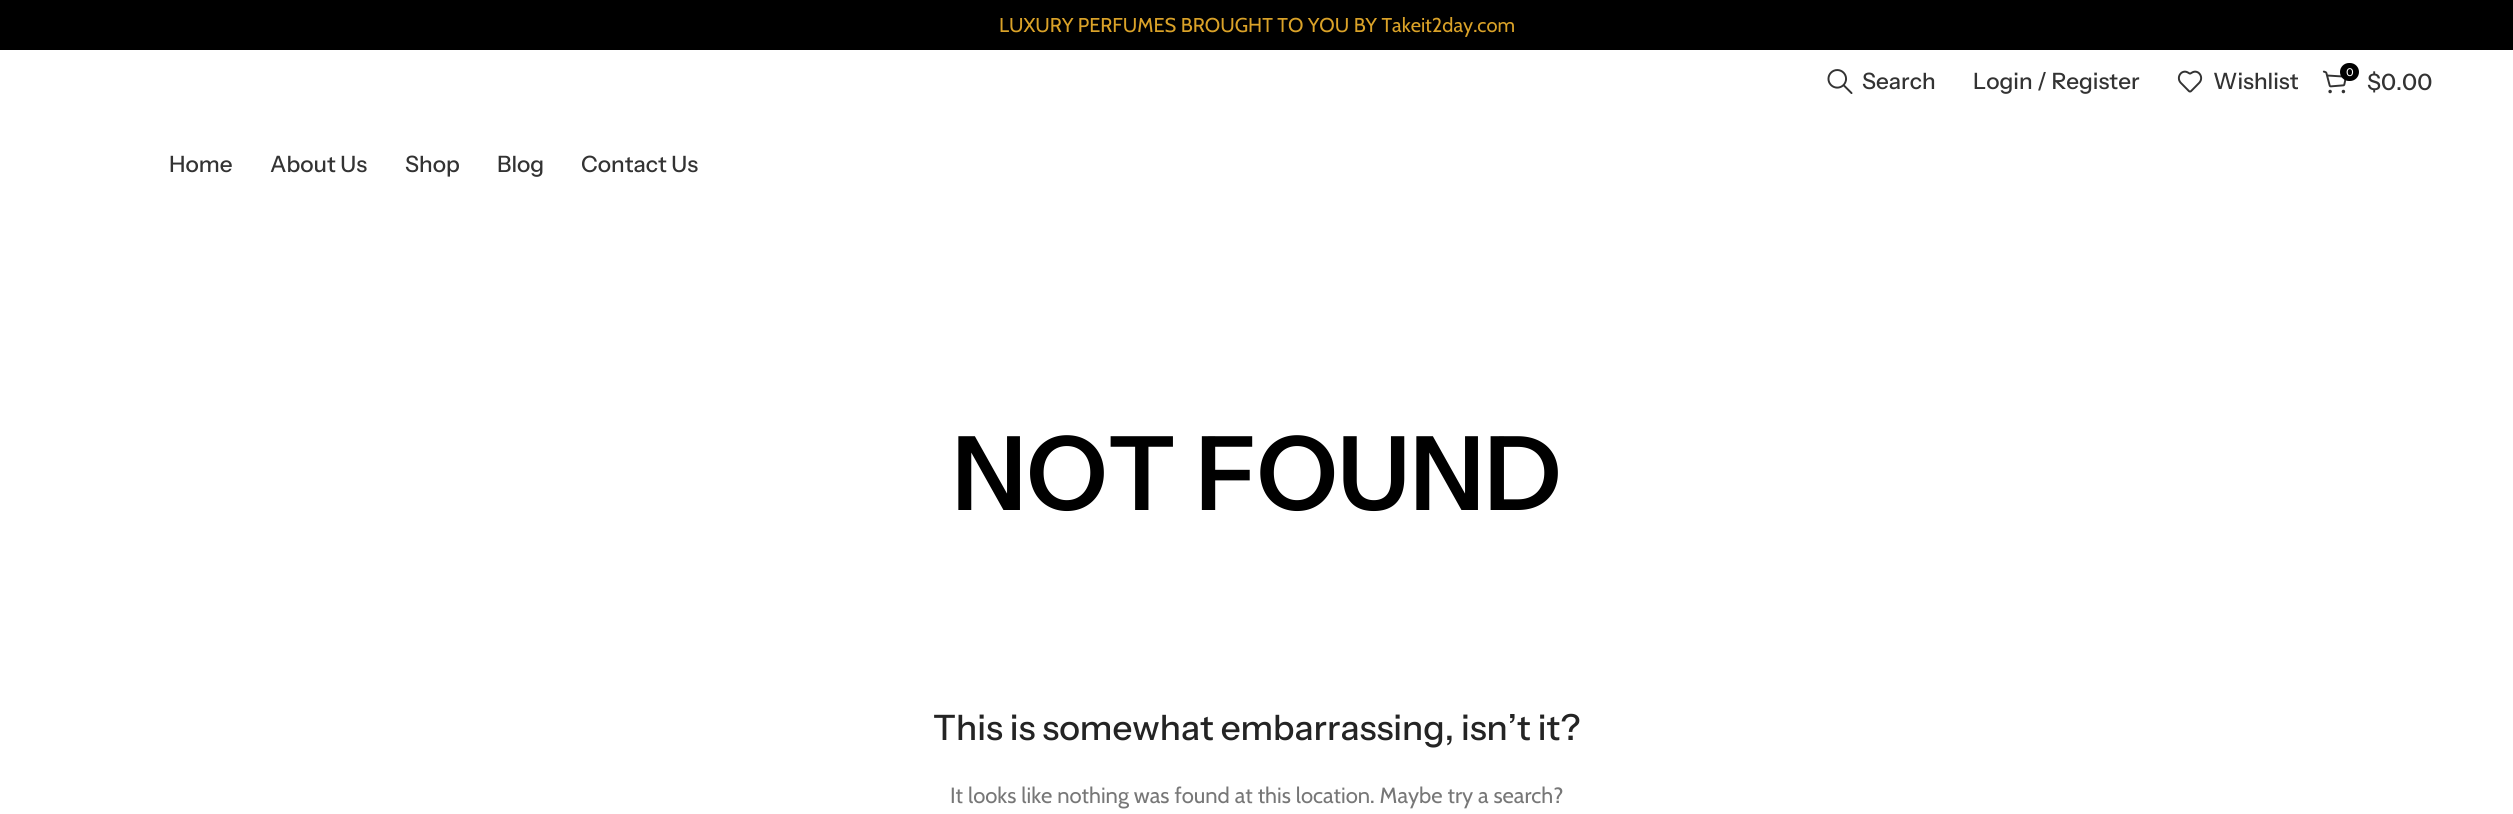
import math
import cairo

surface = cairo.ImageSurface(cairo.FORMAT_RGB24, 2513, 814)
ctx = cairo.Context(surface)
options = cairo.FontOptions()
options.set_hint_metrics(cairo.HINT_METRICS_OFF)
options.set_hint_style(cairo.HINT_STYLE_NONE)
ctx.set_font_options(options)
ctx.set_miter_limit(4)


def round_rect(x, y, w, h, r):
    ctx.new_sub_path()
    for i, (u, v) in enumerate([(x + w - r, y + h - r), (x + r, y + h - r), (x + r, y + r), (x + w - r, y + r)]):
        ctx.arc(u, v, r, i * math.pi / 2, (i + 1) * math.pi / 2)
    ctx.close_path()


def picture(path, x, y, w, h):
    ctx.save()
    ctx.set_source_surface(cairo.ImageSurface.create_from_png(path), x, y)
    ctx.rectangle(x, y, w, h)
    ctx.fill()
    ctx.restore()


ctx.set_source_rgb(1, 1, 1)
ctx.paint()
ctx.set_source_rgb(0, 0, 0)
ctx.rectangle(0, 0, 2513, 50)
ctx.fill()
ctx.select_font_face("Cabin")
ctx.set_font_size(20)
ctx.set_source_rgb(0.855, 0.635, 0.157)
ctx.move_to(999, 32)
ctx.show_text("LUXURY PERFUMES BROUGHT TO YOU BY Takeit2day.com")
picture("img1.png", 1827, 69, 26, 25)
ctx.select_font_face("Instrument Sans Medium")
ctx.set_font_size(22.5)
ctx.set_source_rgb(0.2, 0.2, 0.2)
ctx.move_to(1862, 89)
ctx.show_text("Search")
ctx.move_to(1973, 89)
ctx.show_text("Login / Register")
picture("img2.png", 2177, 70, 26, 23)
ctx.move_to(2213, 89)
ctx.show_text("Wishlist")
picture("img3.png", 2322, 70, 25, 24)
ctx.set_source_rgb(0, 0, 0)
round_rect(2340, 63, 19, 18, 9)
ctx.fill()
ctx.select_font_face("Cabin")
ctx.set_font_size(11)
ctx.set_source_rgb(1, 1, 1)
ctx.move_to(2346, 76)
ctx.show_text("0")
ctx.select_font_face("Instrument Sans Medium")
ctx.set_font_size(22.5)
ctx.set_source_rgb(0.2, 0.2, 0.2)
ctx.move_to(2367, 90)
ctx.show_text("$0.00")
ctx.move_to(169, 172)
ctx.show_text("Home")
ctx.move_to(270, 172)
ctx.show_text("About Us")
ctx.move_to(405, 172)
ctx.show_text("Shop")
ctx.move_to(497, 172)
ctx.show_text("Blog")
ctx.move_to(581, 172)
ctx.show_text("Contact Us")
ctx.select_font_face("Instrument Sans SemiBold")
ctx.set_font_size(102.5)
ctx.set_source_rgb(0, 0, 0)
ctx.move_to(952, 510)
ctx.show_text("NOT FOUND")
ctx.select_font_face("Instrument Sans Medium")
ctx.set_font_size(35)
ctx.set_source_rgb(0.141, 0.141, 0.141)
ctx.move_to(933, 740)
ctx.show_text("This is somewhat embarrassing, isn’t it?")
ctx.select_font_face("Cabin")
ctx.set_font_size(22)
ctx.set_source_rgb(0.467, 0.467, 0.467)
ctx.move_to(950, 803)
ctx.show_text("It looks like nothing was found at this location. Maybe try a search?")
surface.write_to_png("page.png")
